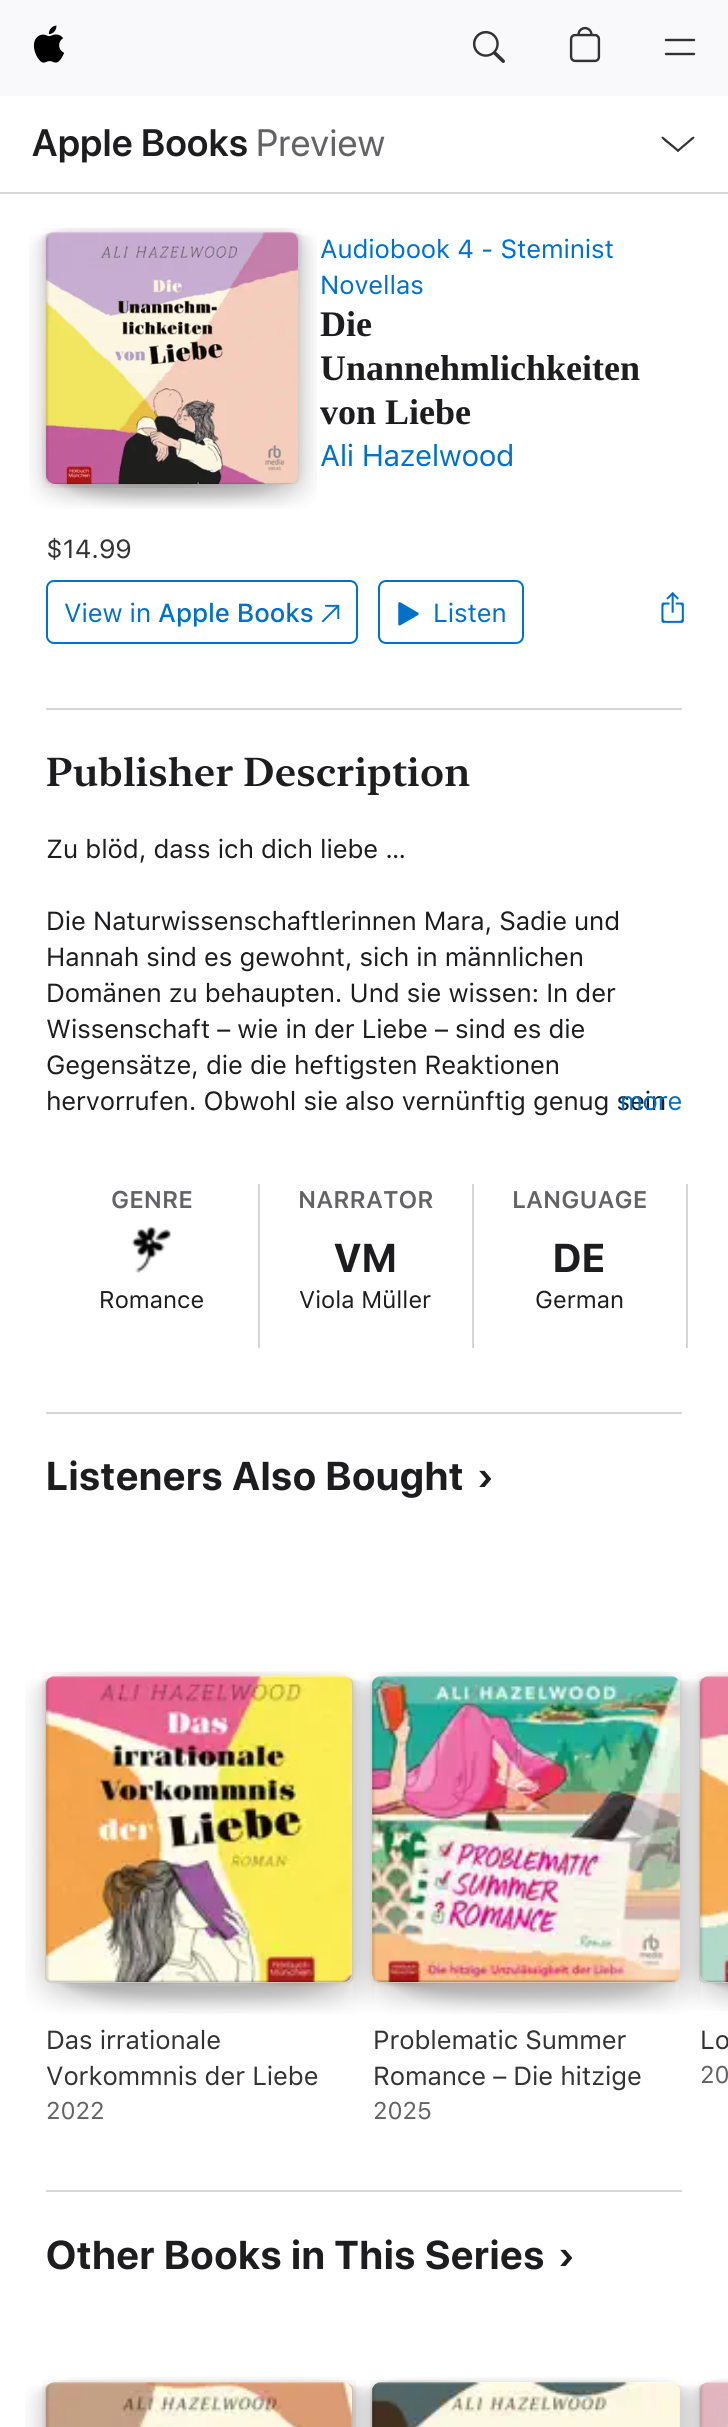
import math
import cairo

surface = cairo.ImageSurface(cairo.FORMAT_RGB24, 728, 2427)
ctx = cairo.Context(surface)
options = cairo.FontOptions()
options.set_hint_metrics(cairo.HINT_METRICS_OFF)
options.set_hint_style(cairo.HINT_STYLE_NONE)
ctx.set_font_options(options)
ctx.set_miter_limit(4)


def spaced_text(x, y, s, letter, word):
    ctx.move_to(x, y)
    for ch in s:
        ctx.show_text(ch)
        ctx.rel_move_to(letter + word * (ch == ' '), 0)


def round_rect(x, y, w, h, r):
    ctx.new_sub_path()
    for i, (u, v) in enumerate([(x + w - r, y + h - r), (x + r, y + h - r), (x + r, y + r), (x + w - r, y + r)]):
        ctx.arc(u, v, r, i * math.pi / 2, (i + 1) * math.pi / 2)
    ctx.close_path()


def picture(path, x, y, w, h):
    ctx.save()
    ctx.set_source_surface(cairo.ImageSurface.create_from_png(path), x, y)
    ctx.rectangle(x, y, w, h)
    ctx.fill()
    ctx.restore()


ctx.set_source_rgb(1, 1, 1)
ctx.paint()
ctx.set_source_rgb(0.976, 0.976, 0.984)
ctx.rectangle(0, 0, 728, 96)
ctx.fill()
picture("img1.png", 33, 25, 31, 38)
picture("img2.png", 472, 30, 33, 33)
picture("img3.png", 569, 26, 32, 37)
ctx.new_path()
ctx.move_to(666, 54)
ctx.line_to(694, 54)
ctx.move_to(666, 40)
ctx.line_to(694, 40)
ctx.set_source_rgb(0.196, 0.196, 0.196)
ctx.set_line_width(2.4)
ctx.set_line_cap(cairo.LINE_CAP_ROUND)
ctx.set_line_join(cairo.LINE_JOIN_ROUND)
ctx.stroke()
ctx.select_font_face("SF Pro Display SemiBold")
ctx.set_font_size(38)
ctx.set_source_rgb(0.114, 0.114, 0.122)
spaced_text(32, 156, "Apple Books", 0.5, 0)
ctx.select_font_face("SF Pro Display")
ctx.set_source_rgb(0.388, 0.388, 0.4)
spaced_text(256, 156, "Preview", 0.5, 0)
ctx.set_source_rgb(0.2, 0.2, 0.2)
ctx.new_path()
ctx.move_to(663.5, 137)
ctx.line_to(679.5, 150.5)
ctx.line_to(678, 152)
ctx.line_to(664.5, 141)
ctx.curve_to(664.5, 140.5, 660, 138, 662, 136.5)
ctx.close_path()
ctx.fill()
ctx.new_path()
ctx.move_to(676.5, 150.5)
ctx.line_to(690, 139)
ctx.curve_to(690, 139, 693.5, 135, 694.5, 137.5)
ctx.line_to(694, 138.5)
ctx.line_to(678, 152)
ctx.close_path()
ctx.fill()
ctx.set_source_rgb(0.839, 0.839, 0.839)
ctx.rectangle(0, 192, 728, 2)
ctx.fill()
picture("img4.png", 29, 227, 288, 282)
picture("img5.png", 42, 228, 260, 260)
picture("img6.png", 46, 232, 252, 252)
picture("img7.png", 46, 232, 247, 252)
ctx.select_font_face("SF Pro Text")
ctx.set_font_size(26)
ctx.set_source_rgb(0, 0.439, 0.788)
spaced_text(320, 258, "Audiobook 4 - Steminist", -0.13, 0)
spaced_text(320, 294, "Novellas", -0.13, 0)
ctx.select_font_face("Liberation Serif", cairo.FONT_SLANT_NORMAL, cairo.FONT_WEIGHT_BOLD)
ctx.set_font_size(36)
ctx.set_source_rgb(0.114, 0.114, 0.122)
ctx.move_to(320, 336)
ctx.show_text("Die")
ctx.move_to(320, 380)
ctx.show_text("Unannehmlichkeiten")
ctx.move_to(320, 424)
ctx.show_text("von Liebe")
ctx.select_font_face("SF Pro Text")
ctx.set_font_size(30)
ctx.set_source_rgb(0, 0.439, 0.788)
spaced_text(320, 466, "Ali Hazelwood", -0.5, 0)
ctx.set_font_size(26)
ctx.set_source_rgb(0.2, 0.2, 0.2)
spaced_text(46, 558, "$14.99", -0.13, 0)
round_rect(47, 581, 310, 62, 7)
ctx.set_source_rgb(0, 0.439, 0.788)
ctx.set_line_width(2)
ctx.set_line_cap(cairo.LINE_CAP_BUTT)
ctx.set_line_join(cairo.LINE_JOIN_MITER)
ctx.stroke()
spaced_text(64, 622, "View in", -0.13, 0)
ctx.select_font_face("SF Pro Text Medium")
spaced_text(158, 622, "Apple Books", -0.13, 0)
picture("img8.png", 321, 604, 19, 19)
round_rect(379, 581, 144, 62, 7)
ctx.stroke()
picture("img9.png", 398, 602, 21, 24)
ctx.select_font_face("SF Pro Text")
spaced_text(433, 622, "Listen", -0.13, 0)
picture("img10.png", 661, 592, 23, 31)
ctx.set_source_rgb(0.839, 0.839, 0.839)
ctx.rectangle(46, 708, 636, 2)
ctx.fill()
ctx.select_font_face("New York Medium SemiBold")
ctx.set_font_size(40)
ctx.set_source_rgb(0.114, 0.114, 0.122)
ctx.move_to(46, 786)
ctx.show_text("Publisher Description")
ctx.select_font_face("SF Pro Text")
ctx.set_font_size(26)
spaced_text(46, 858, "Zu blöd, dass ich dich liebe …", -0.13, 0)
spaced_text(46, 930, "Die Naturwissenschaftlerinnen Mara, Sadie und", -0.13, 0)
spaced_text(46, 966, "Hannah sind es gewohnt, sich in männlichen", -0.13, 0)
spaced_text(46, 1002, "Domänen zu behaupten. Und sie wissen: In der", -0.13, 0)
spaced_text(46, 1038, "Wissenschaft – wie in der Liebe – sind es die", -0.13, 0)
spaced_text(46, 1074, "Gegensätze, die die heftigsten Reaktionen", -0.13, 0)
spaced_text(46, 1110, "hervorrufen. Obwohl sie also vernünftig genug sein", -0.13, 0)
ctx.set_source_rgb(0, 0.439, 0.788)
spaced_text(620, 1110, "more", -0.13, 0)
ctx.set_source_rgb(0.839, 0.839, 0.839)
ctx.rectangle(258, 1184, 2, 164)
ctx.fill()
ctx.select_font_face("SF Pro Text SemiBold")
ctx.set_font_size(24)
ctx.set_source_rgb(0.388, 0.388, 0.4)
ctx.move_to(111, 1208)
ctx.show_text("GENRE")
picture("img11.png", 131, 1226, 40, 47)
ctx.select_font_face("SF Pro Text")
ctx.set_source_rgb(0.114, 0.114, 0.122)
ctx.move_to(99, 1308)
ctx.show_text("Romance")
ctx.set_source_rgb(0.839, 0.839, 0.839)
ctx.rectangle(472, 1184, 2, 164)
ctx.fill()
ctx.select_font_face("SF Pro Text SemiBold")
ctx.set_source_rgb(0.388, 0.388, 0.4)
ctx.move_to(298, 1208)
ctx.show_text("NARRATOR")
ctx.select_font_face("SF Pro Display", cairo.FONT_SLANT_NORMAL, cairo.FONT_WEIGHT_BOLD)
ctx.set_font_size(40)
ctx.set_source_rgb(0.114, 0.114, 0.122)
spaced_text(334, 1272, "VM", 0.95, 0)
ctx.select_font_face("SF Pro Text")
ctx.set_font_size(24)
ctx.move_to(299, 1308)
ctx.show_text("Viola Müller")
ctx.set_source_rgb(0.839, 0.839, 0.839)
ctx.rectangle(686, 1184, 2, 164)
ctx.fill()
ctx.select_font_face("SF Pro Text SemiBold")
ctx.set_source_rgb(0.388, 0.388, 0.4)
ctx.move_to(512, 1208)
ctx.show_text("LANGUAGE")
ctx.select_font_face("SF Pro Display", cairo.FONT_SLANT_NORMAL, cairo.FONT_WEIGHT_BOLD)
ctx.set_font_size(40)
ctx.set_source_rgb(0.114, 0.114, 0.122)
spaced_text(553, 1272, "DE", 0.95, 0)
ctx.select_font_face("SF Pro Text")
ctx.set_font_size(24)
ctx.move_to(535, 1308)
ctx.show_text("German")
ctx.set_source_rgb(0.839, 0.839, 0.839)
ctx.rectangle(46, 1412, 636, 2)
ctx.fill()
ctx.select_font_face("SF Pro Display", cairo.FONT_SLANT_NORMAL, cairo.FONT_WEIGHT_BOLD)
ctx.set_font_size(40)
ctx.set_source_rgb(0.114, 0.114, 0.122)
spaced_text(46, 1490, "Listeners Also Bought", 0.95, 0)
spaced_text(477, 1490, "›", 0.95, 0)
picture("img12.png", 25, 1671, 350, 343)
picture("img13.png", 42, 1672, 314, 314)
picture("img14.png", 46, 1676, 306, 306)
picture("img15.png", 46, 1676, 306, 306)
ctx.select_font_face("SF Pro Text")
ctx.set_font_size(26)
ctx.set_source_rgb(0.2, 0.2, 0.2)
spaced_text(46, 2049, "Das irrationale", -0.13, 0)
spaced_text(46, 2085, "Vorkommnis der Liebe", -0.13, 0)
ctx.set_font_size(24)
ctx.set_source_rgb(0.388, 0.388, 0.4)
ctx.move_to(46, 2119)
ctx.show_text("2022")
picture("img16.png", 353, 1671, 348, 343)
picture("img17.png", 370, 1672, 312, 314)
picture("img18.png", 372, 1676, 308, 306)
picture("img19.png", 372, 1676, 308, 306)
ctx.set_font_size(26)
ctx.set_source_rgb(0.2, 0.2, 0.2)
spaced_text(373, 2049, "Problematic Summer", -0.13, 0)
spaced_text(373, 2085, "Romance – Die hitzige", -0.13, 0)
ctx.set_font_size(24)
ctx.set_source_rgb(0.388, 0.388, 0.4)
ctx.move_to(373, 2119)
ctx.show_text("2025")
picture("img20.png", 679, 1672, 49, 339)
picture("img21.png", 698, 1672, 30, 314)
picture("img22.png", 700, 1676, 28, 306)
picture("img23.png", 700, 1676, 28, 306)
ctx.set_font_size(26)
ctx.set_source_rgb(0.2, 0.2, 0.2)
spaced_text(700, 2049, "Lo", -0.13, 0)
ctx.set_font_size(24)
ctx.set_source_rgb(0.388, 0.388, 0.4)
ctx.move_to(700, 2083)
ctx.show_text("20")
ctx.set_source_rgb(0.839, 0.839, 0.839)
ctx.rectangle(46, 2190, 636, 2)
ctx.fill()
ctx.select_font_face("SF Pro Display", cairo.FONT_SLANT_NORMAL, cairo.FONT_WEIGHT_BOLD)
ctx.set_font_size(40)
ctx.set_source_rgb(0.114, 0.114, 0.122)
spaced_text(46, 2269, "Other Books in This Series", 0.95, 0)
spaced_text(558, 2269, "›", 0.95, 0)
picture("img24.png", 25, 2377, 347, 50)
picture("img25.png", 42, 2380, 314, 47)
picture("img26.png", 46, 2382, 306, 45)
picture("img27.png", 46, 2382, 306, 45)
picture("img28.png", 353, 2377, 347, 50)
picture("img29.png", 370, 2380, 312, 47)
picture("img30.png", 372, 2382, 308, 45)
picture("img31.png", 372, 2382, 308, 45)
picture("img32.png", 679, 2378, 49, 49)
picture("img33.png", 698, 2380, 30, 47)
picture("img34.png", 700, 2382, 28, 45)
picture("img35.png", 700, 2382, 28, 45)
surface.write_to_png("page.png")
